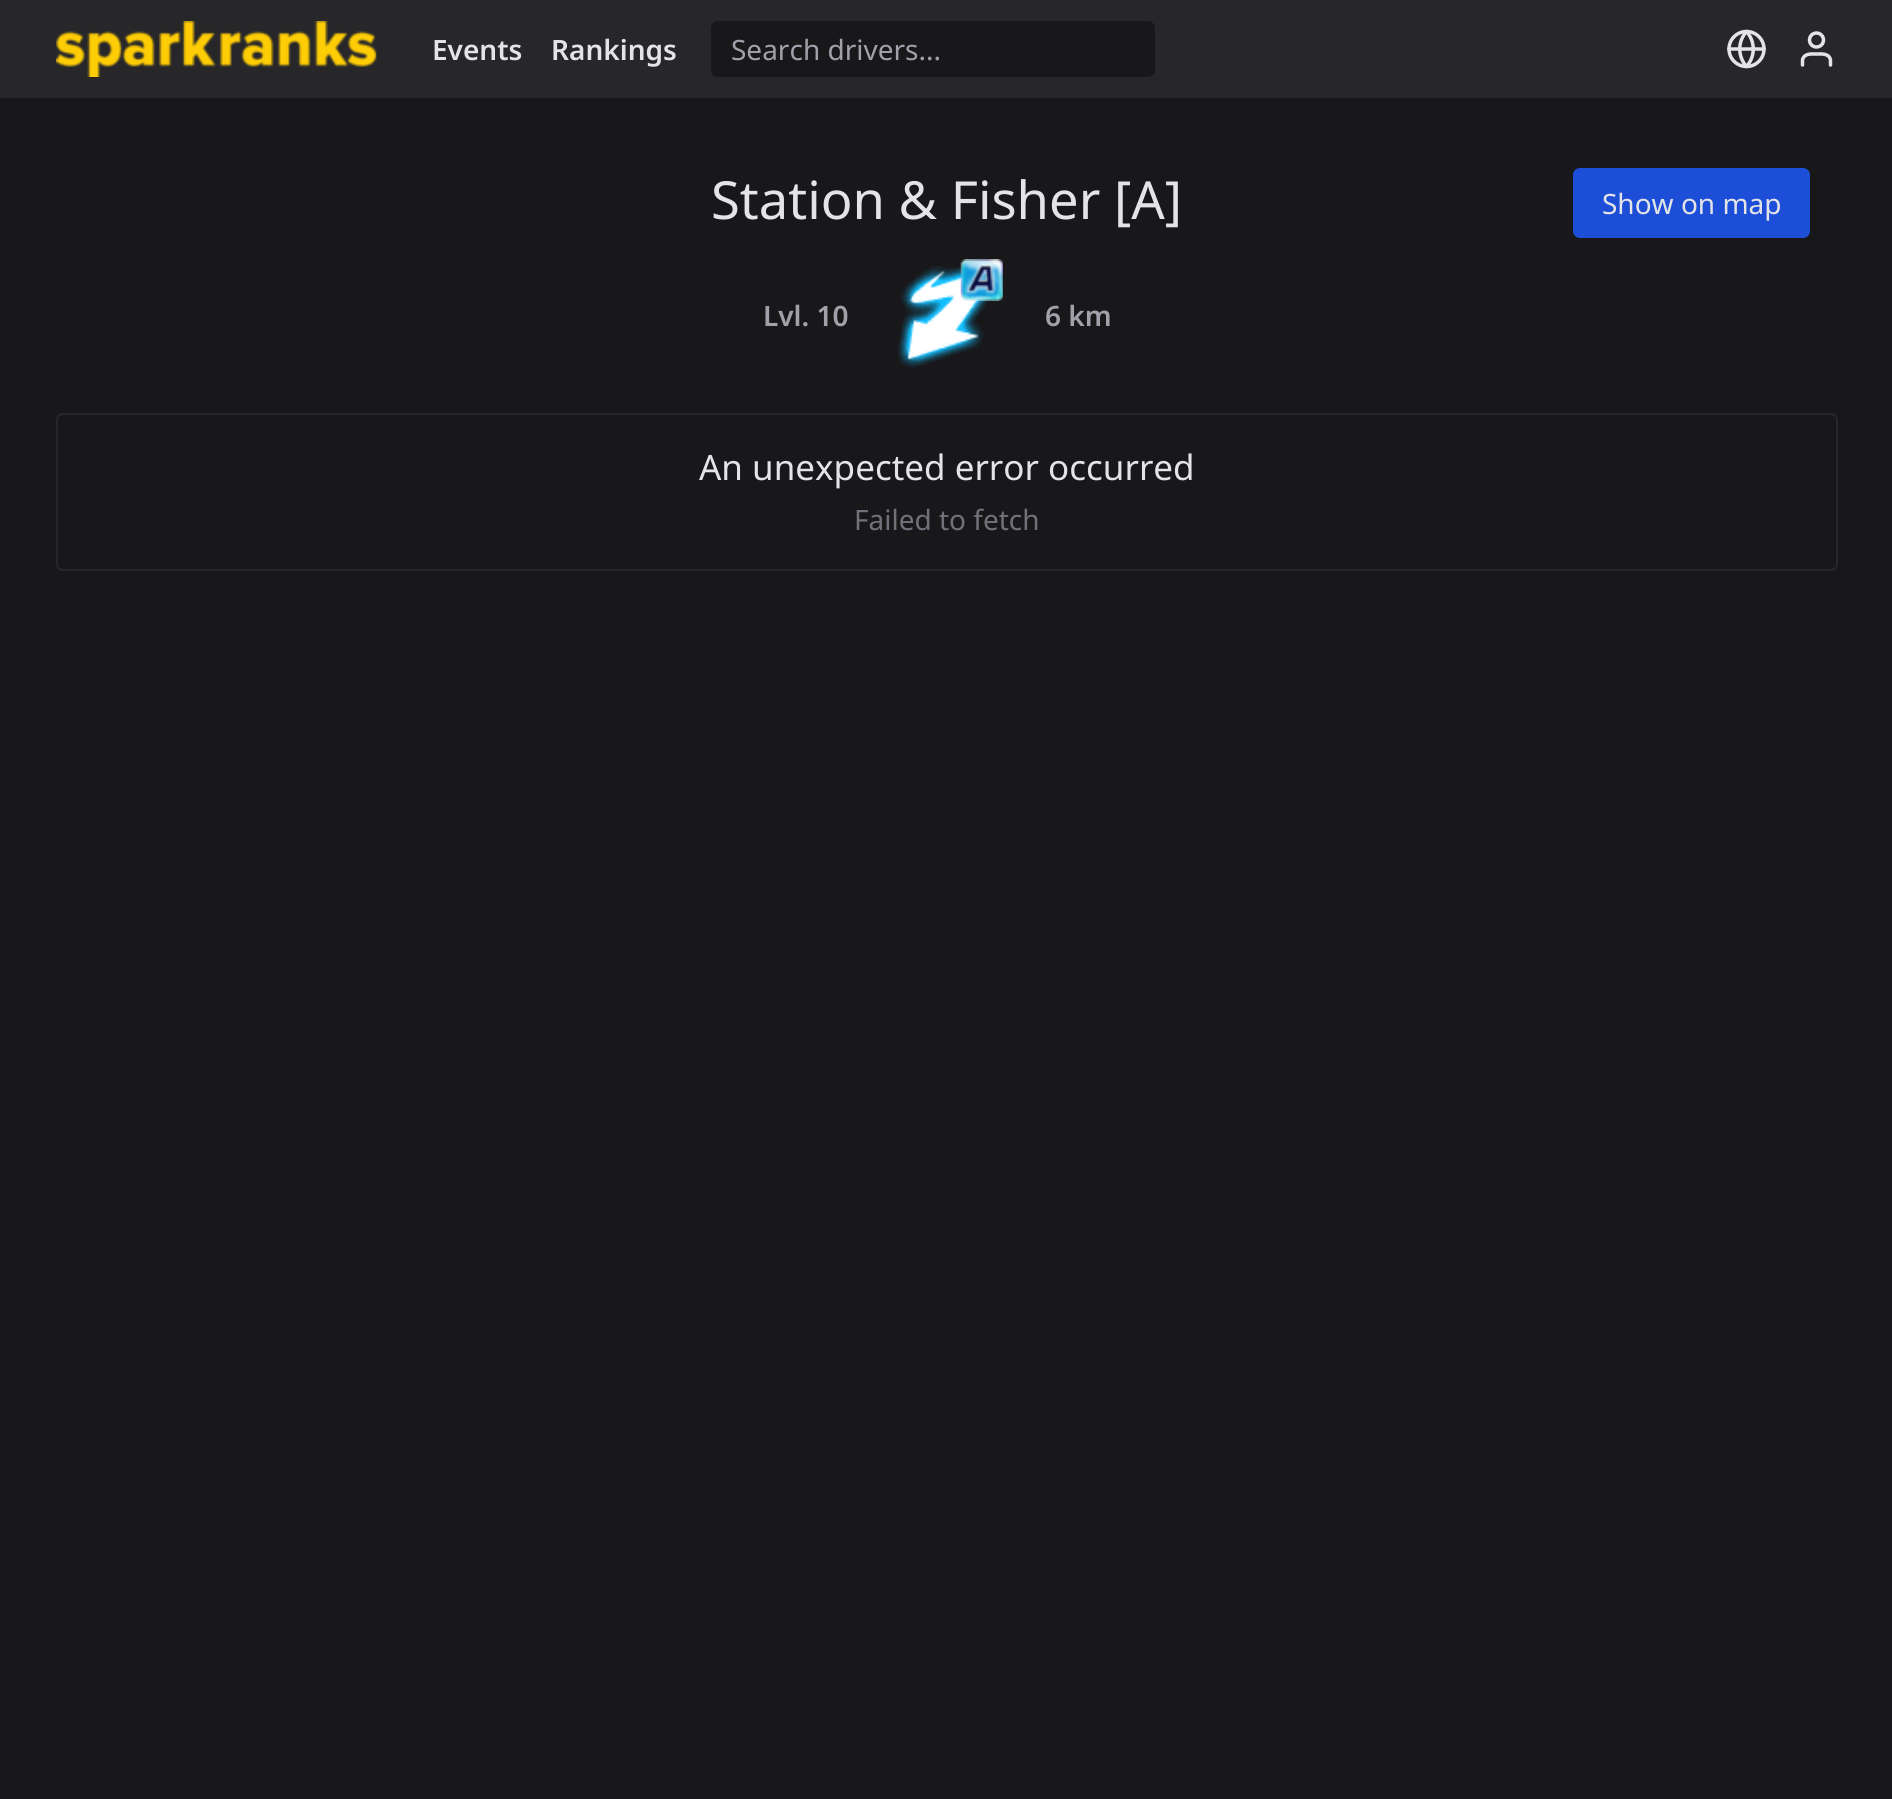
import math
import cairo

surface = cairo.ImageSurface(cairo.FORMAT_RGB24, 1892, 1799)
ctx = cairo.Context(surface)
options = cairo.FontOptions()
options.set_hint_metrics(cairo.HINT_METRICS_OFF)
options.set_hint_style(cairo.HINT_STYLE_NONE)
ctx.set_font_options(options)
ctx.set_miter_limit(4)


def round_rect(x, y, w, h, r):
    ctx.new_sub_path()
    for i, (u, v) in enumerate([(x + w - r, y + h - r), (x + r, y + h - r), (x + r, y + r), (x + w - r, y + r)]):
        ctx.arc(u, v, r, i * math.pi / 2, (i + 1) * math.pi / 2)
    ctx.close_path()


def picture(path, x, y, w, h):
    ctx.save()
    ctx.set_source_surface(cairo.ImageSurface.create_from_png(path), x, y)
    ctx.rectangle(x, y, w, h)
    ctx.fill()
    ctx.restore()


ctx.set_source_rgb(0.094, 0.094, 0.106)
ctx.paint()
ctx.set_source_rgb(0.153, 0.153, 0.165)
ctx.rectangle(0, 0, 1892, 98)
ctx.fill()
picture("img1.png", 56, 21, 321, 56)
ctx.select_font_face("Noto Sans SemiBold")
ctx.set_font_size(28)
ctx.set_source_rgb(0.894, 0.894, 0.906)
ctx.move_to(432, 60)
ctx.show_text("Events")
ctx.move_to(551, 60)
ctx.show_text("Rankings")
ctx.set_source_rgb(0.094, 0.094, 0.106)
round_rect(711, 21, 444, 56, 7)
ctx.fill()
ctx.select_font_face("Noto Sans")
ctx.set_source_rgb(0.631, 0.631, 0.667)
ctx.move_to(731, 60)
ctx.show_text("Search drivers...")
ctx.new_path()
ctx.arc(1746.5, 49, 17.5, 0, 2 * math.pi)
ctx.set_source_rgb(0.894, 0.894, 0.906)
ctx.set_line_width(3.5)
ctx.stroke()
ctx.new_path()
ctx.move_to(1729, 49)
ctx.line_to(1764, 49)
ctx.move_to(1746.5, 31.5)
ctx.curve_to(1755.5, 41.5, 1755.5, 56.5, 1746.5, 66.5)
ctx.curve_to(1737.5, 56.5, 1737.5, 41.5, 1746.5, 31.5)
ctx.close_path()
ctx.set_line_cap(cairo.LINE_CAP_ROUND)
ctx.set_line_join(cairo.LINE_JOIN_ROUND)
ctx.stroke()
ctx.new_path()
ctx.move_to(1830.5, 65)
ctx.line_to(1830.5, 60)
ctx.curve_to(1829, 53, 1821.5, 54, 1816.5, 54)
ctx.curve_to(1811.5, 54, 1804, 53, 1802.5, 60)
ctx.line_to(1802.5, 65)
ctx.stroke()
ctx.arc(1816.5, 40, 7, 0, 2 * math.pi)
ctx.set_line_cap(cairo.LINE_CAP_BUTT)
ctx.set_line_join(cairo.LINE_JOIN_MITER)
ctx.stroke()
ctx.set_font_size(52.5)
ctx.move_to(711, 219)
ctx.show_text("Station & Fisher [A]")
ctx.select_font_face("Noto Sans SemiBold")
ctx.set_font_size(28)
ctx.set_source_rgb(0.631, 0.631, 0.667)
ctx.move_to(763, 326)
ctx.show_text("Lvl. 10")
picture("img3.png", 898, 266, 93, 102)
picture("img2.png", 960, 259, 43, 42)
ctx.move_to(1045, 326)
ctx.show_text("6 km")
ctx.set_source_rgb(0.114, 0.306, 0.847)
round_rect(1573, 168, 237, 70, 7)
ctx.fill()
ctx.select_font_face("Noto Sans")
ctx.set_source_rgb(0.894, 0.894, 0.906)
ctx.move_to(1602, 214)
ctx.show_text("Show on map")
round_rect(57, 414, 1780, 156, 6)
ctx.set_source_rgb(0.153, 0.153, 0.165)
ctx.set_line_width(2)
ctx.stroke()
ctx.set_font_size(35)
ctx.set_source_rgb(0.894, 0.894, 0.906)
ctx.move_to(699, 480)
ctx.show_text("An unexpected error occurred")
ctx.set_font_size(28)
ctx.set_source_rgb(0.443, 0.443, 0.478)
ctx.move_to(854, 530)
ctx.show_text("Failed to fetch")
surface.write_to_png("page.png")
